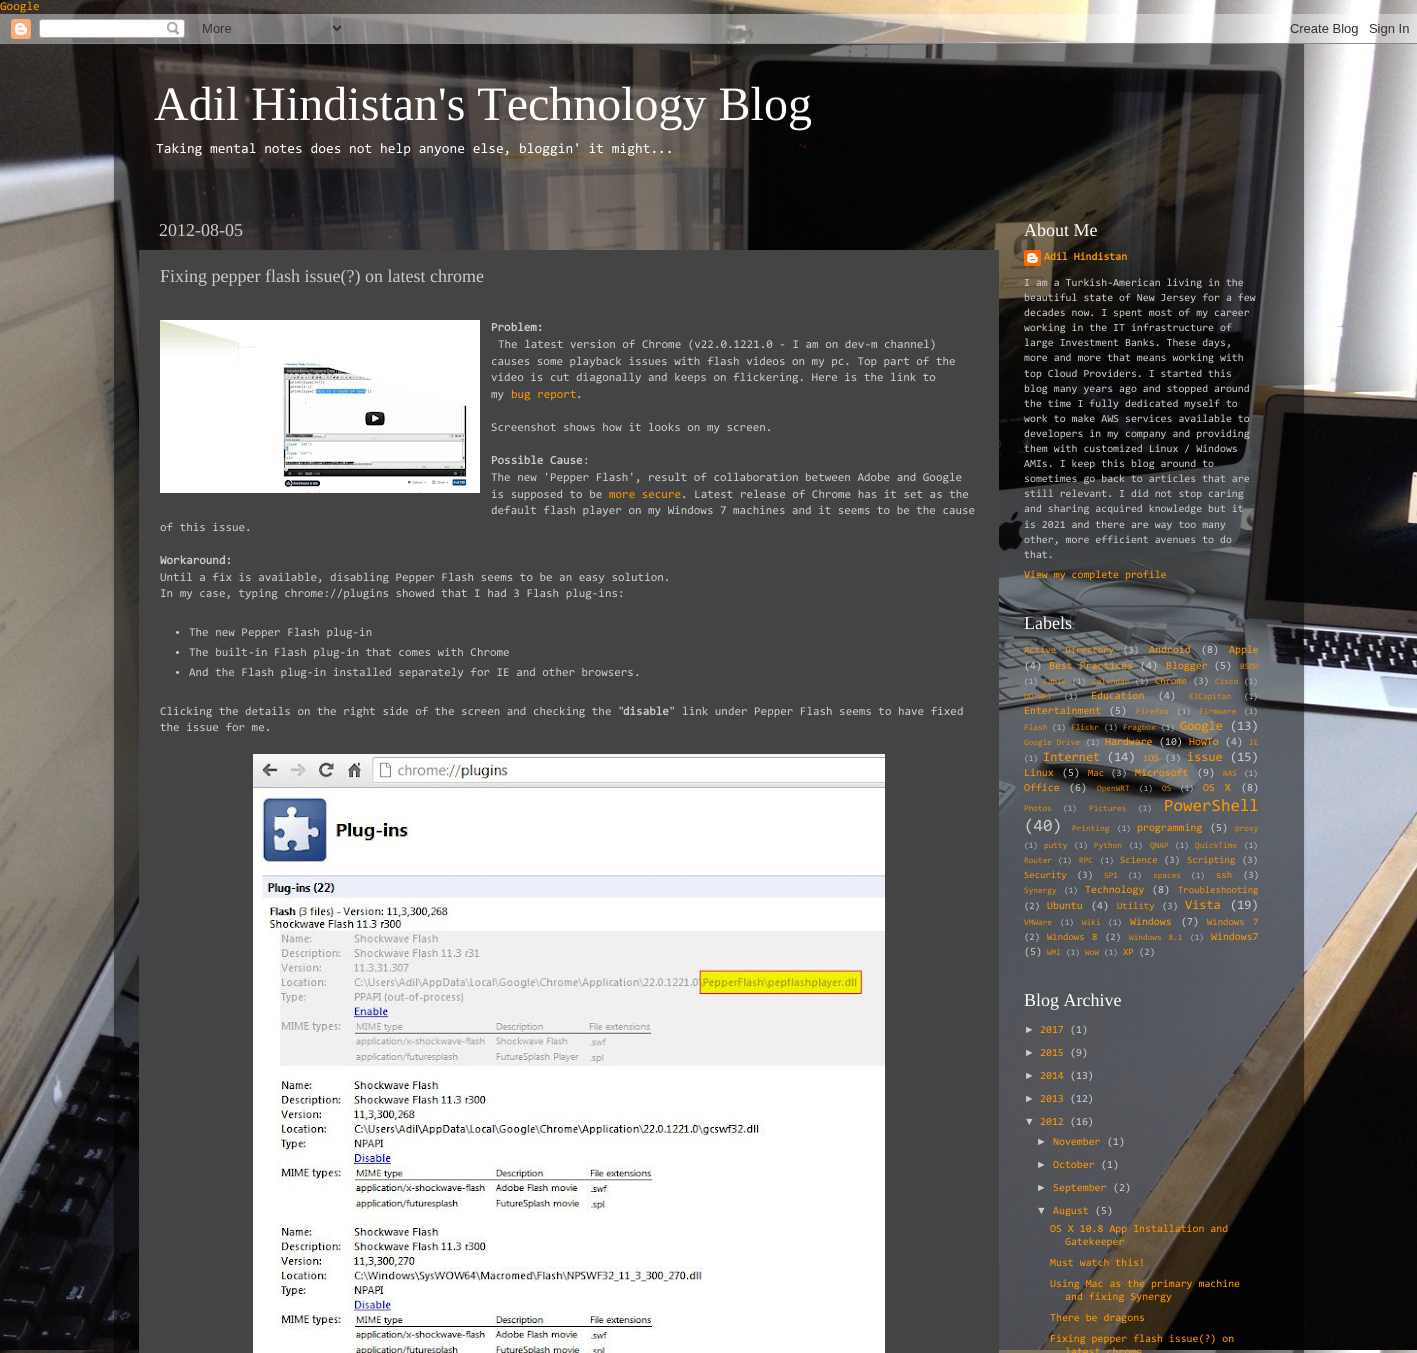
import math
import cairo

surface = cairo.ImageSurface(cairo.FORMAT_RGB24, 1417, 1353)
ctx = cairo.Context(surface)
options = cairo.FontOptions()
options.set_hint_metrics(cairo.HINT_METRICS_OFF)
options.set_hint_style(cairo.HINT_STYLE_NONE)
ctx.set_font_options(options)
ctx.set_miter_limit(4)


def spaced_text(x, y, s, letter, word):
    ctx.move_to(x, y)
    for ch in s:
        ctx.show_text(ch)
        ctx.rel_move_to(letter + word * (ch == ' '), 0)


def round_rect(x, y, w, h, r):
    ctx.new_sub_path()
    for i, (u, v) in enumerate([(x + w - r, y + h - r), (x + r, y + h - r), (x + r, y + r), (x + w - r, y + r)]):
        ctx.arc(u, v, r, i * math.pi / 2, (i + 1) * math.pi / 2)
    ctx.close_path()


def shadow(x, y, w, h, r, blur, alpha):
    ctx.push_group_with_content(cairo.CONTENT_ALPHA)
    ctx.set_operator(cairo.OPERATOR_SOURCE)
    for i in range(15, -16, -2):
        e = blur * i / 6
        if min(w, h) + 2 * e > 0:
            ctx.set_source_rgba(0, 0, 0, alpha * math.erfc((i - 1) / 8.5) / 2)
            round_rect(x - e, y - e, w + 2 * e, h + 2 * e, max(0, min(r + e + blur * .6, min(w, h) / 2 + e)))
            ctx.fill()
    ctx.mask(ctx.pop_group())


def picture(path, x, y, w, h):
    ctx.save()
    ctx.set_source_surface(cairo.ImageSurface.create_from_png(path), x, y)
    ctx.rectangle(x, y, w, h)
    ctx.fill()
    ctx.restore()


ctx.set_source_rgb(1, 1, 1)
ctx.paint()
picture("img1.png", 0, 0, 1417, 1353)
ctx.select_font_face("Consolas")
ctx.set_font_size(12)
ctx.set_source_rgb(1, 0.6, 0)
ctx.move_to(0, 10)
ctx.show_text("Google")
ctx.save()
ctx.set_fill_rule(cairo.FILL_RULE_EVEN_ODD)
ctx.new_path()
ctx.move_to(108, 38)
ctx.line_to(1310, 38)
ctx.line_to(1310, 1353)
ctx.line_to(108, 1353)
ctx.close_path()
ctx.move_to(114, 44)
ctx.line_to(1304, 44)
ctx.line_to(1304, 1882)
ctx.line_to(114, 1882)
ctx.close_path()
ctx.clip()
ctx.set_source_rgb(0, 0, 0)
shadow(114, 44, 1190, 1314, 0, 1.5, 0.15)
ctx.restore()
picture("img2.png", 0, 14, 1417, 30)
ctx.set_source_rgba(0, 0, 0, 0.5)
ctx.rectangle(114, 44, 1190, 1309)
ctx.fill()
ctx.select_font_face("Liberation Serif")
ctx.set_font_size(48)
ctx.set_source_rgb(1, 1, 1)
ctx.move_to(154, 120)
ctx.show_text("Adil Hindistan's Technology Blog")
ctx.select_font_face("Consolas")
ctx.set_font_size(14.05)
ctx.move_to(156, 153)
ctx.show_text("Taking mental notes does not help anyone else, bloggin' it might...")
ctx.select_font_face("Liberation Serif")
ctx.set_font_size(18)
ctx.set_source_rgb(0.8, 0.8, 0.8)
ctx.move_to(159, 236)
ctx.show_text("2012-08-05")
ctx.set_source_rgb(0.267, 0.267, 0.267)
ctx.rectangle(139, 250, 860, 1103)
ctx.fill()
ctx.set_source_rgb(0.8, 0.8, 0.8)
ctx.move_to(160, 282)
ctx.show_text("Fixing pepper flash issue(?) on latest chrome")
picture("img3.png", 160, 320, 320, 173)
ctx.select_font_face("Consolas", cairo.FONT_SLANT_NORMAL, cairo.FONT_WEIGHT_BOLD)
ctx.set_font_size(11.9)
ctx.move_to(491, 331)
ctx.show_text("Problem:")
ctx.select_font_face("Consolas")
ctx.move_to(498, 348)
ctx.show_text("The latest version of Chrome (v22.0.1221.0 - I am on dev-m channel)")
ctx.move_to(491, 365)
ctx.show_text("causes some playback issues with flash videos on my pc. Top part of the")
ctx.move_to(491, 381)
ctx.show_text("video is cut diagonally and keeps on flickering. Here is the link to")
ctx.move_to(491, 398)
ctx.show_text("my")
ctx.set_source_rgb(1, 0.6, 0)
ctx.move_to(511, 398)
ctx.show_text("bug report")
ctx.set_source_rgb(0.8, 0.8, 0.8)
ctx.move_to(576, 398)
ctx.show_text(".")
ctx.move_to(491, 431)
ctx.show_text("Screenshot shows how it looks on my screen.")
ctx.select_font_face("Consolas", cairo.FONT_SLANT_NORMAL, cairo.FONT_WEIGHT_BOLD)
ctx.move_to(491, 464)
ctx.show_text("Possible Cause")
ctx.select_font_face("Consolas")
ctx.move_to(583, 464)
ctx.show_text(":")
ctx.move_to(491, 481)
ctx.show_text("The new 'Pepper Flash', result of collaboration between Adobe and Google")
ctx.move_to(491, 498)
ctx.show_text("is supposed to be")
ctx.set_source_rgb(1, 0.6, 0)
ctx.move_to(609, 498)
ctx.show_text("more secure")
ctx.set_source_rgb(0.8, 0.8, 0.8)
ctx.move_to(681, 498)
ctx.show_text(". Latest release of Chrome has it set as the")
ctx.move_to(491, 514)
ctx.show_text("default flash player on my Windows 7 machines and it seems to be the cause")
ctx.move_to(160, 531)
ctx.show_text("of this issue.")
ctx.select_font_face("Consolas", cairo.FONT_SLANT_NORMAL, cairo.FONT_WEIGHT_BOLD)
ctx.move_to(160, 564)
ctx.show_text("Workaround:")
ctx.select_font_face("Consolas")
ctx.move_to(160, 581)
ctx.show_text("Until a fix is available, disabling Pepper Flash seems to be an easy solution.")
ctx.move_to(160, 597)
ctx.show_text("In my case, typing chrome://plugins showed that I had 3 Flash plug-ins:")
ctx.new_path()
ctx.arc(177.5, 632.5, 1.5, 0, 2 * math.pi)
ctx.fill()
ctx.move_to(189, 636)
ctx.show_text("The new Pepper Flash plug-in")
ctx.new_path()
ctx.arc(177.5, 652.5, 1.5, 0, 2 * math.pi)
ctx.fill()
ctx.move_to(189, 656)
ctx.show_text("The built-in Flash plug-in that comes with Chrome")
ctx.new_path()
ctx.arc(177.5, 672.5, 1.5, 0, 2 * math.pi)
ctx.fill()
ctx.move_to(189, 676)
ctx.show_text("And the Flash plug-in installed separately for IE and other browsers.")
ctx.move_to(160, 715)
ctx.show_text("Clicking the details on the right side of the screen and checking the \"")
ctx.select_font_face("Consolas", cairo.FONT_SLANT_NORMAL, cairo.FONT_WEIGHT_BOLD)
ctx.move_to(623, 715)
ctx.show_text("disable")
ctx.select_font_face("Consolas")
ctx.move_to(669, 715)
ctx.show_text("\" link under Pepper Flash seems to have fixed")
ctx.move_to(160, 731)
ctx.show_text("the issue for me.")
picture("img4.png", 253, 754, 632, 599)
ctx.select_font_face("Liberation Serif")
ctx.set_font_size(18)
ctx.set_source_rgb(1, 1, 1)
ctx.move_to(1024, 236)
ctx.show_text("About Me")
picture("img5.png", 1024, 250, 17, 16)
ctx.select_font_face("Consolas", cairo.FONT_SLANT_NORMAL, cairo.FONT_WEIGHT_BOLD)
ctx.set_font_size(10.8)
ctx.set_source_rgb(1, 0.6, 0)
ctx.move_to(1044, 260)
ctx.show_text("Adil Hindistan")
ctx.select_font_face("Consolas")
ctx.set_source_rgb(0.8, 0.8, 0.8)
ctx.move_to(1024, 286)
ctx.show_text("I am a Turkish-American living in the")
ctx.move_to(1024, 301)
ctx.show_text("beautiful state of New Jersey for a few")
ctx.move_to(1024, 316)
ctx.show_text("decades now. I spent most of my career")
ctx.move_to(1024, 331)
ctx.show_text("working in the IT infrastructure of")
ctx.move_to(1024, 346)
ctx.show_text("large Investment Banks. These days,")
ctx.move_to(1024, 361)
ctx.show_text("more and more that means working with")
ctx.move_to(1024, 377)
ctx.show_text("top Cloud Providers. I started this")
ctx.move_to(1024, 392)
ctx.show_text("blog many years ago and stopped around")
ctx.move_to(1024, 407)
ctx.show_text("the time I fully dedicated myself to")
ctx.move_to(1024, 422)
ctx.show_text("work to make AWS services available to")
ctx.move_to(1024, 437)
ctx.show_text("developers in my company and providing")
ctx.move_to(1024, 452)
ctx.show_text("them with customized Linux / Windows")
ctx.move_to(1024, 467)
ctx.show_text("AMIs. I keep this blog around to")
ctx.move_to(1024, 482)
ctx.show_text("sometimes go back to articles that are")
ctx.move_to(1024, 497)
ctx.show_text("still relevant. I did not stop caring")
ctx.move_to(1024, 512)
ctx.show_text("and sharing acquired knowledge but it")
ctx.move_to(1024, 528)
ctx.show_text("is 2021 and there are way too many")
ctx.move_to(1024, 543)
ctx.show_text("other, more efficient avenues to do")
ctx.move_to(1024, 558)
ctx.show_text("that.")
ctx.set_source_rgb(1, 0.6, 0)
ctx.move_to(1024, 578)
ctx.show_text("View my complete profile")
ctx.select_font_face("Liberation Serif")
ctx.set_font_size(18)
ctx.set_source_rgb(1, 1, 1)
ctx.move_to(1024, 629)
ctx.show_text("Labels")
ctx.select_font_face("Consolas")
ctx.set_font_size(9.75)
ctx.set_source_rgb(0.937, 0.58, 0.043)
spaced_text(1024, 653, "Active Directory", 0, 4)
ctx.set_source_rgb(0.765, 0.765, 0.765)
ctx.move_to(1123, 653)
ctx.show_text("(3)")
ctx.set_font_size(10.8)
ctx.set_source_rgb(1, 0.6, 0)
ctx.move_to(1149, 653)
ctx.show_text("Android")
ctx.set_source_rgb(0.8, 0.8, 0.8)
ctx.move_to(1201, 653)
ctx.show_text("(8)")
ctx.set_source_rgb(1, 0.6, 0)
ctx.move_to(1229, 653)
ctx.show_text("Apple")
ctx.set_source_rgb(0.8, 0.8, 0.8)
ctx.move_to(1024, 669)
ctx.show_text("(4)")
ctx.set_source_rgb(1, 0.6, 0)
spaced_text(1049, 669, "Best Practices", 0, 1)
ctx.set_source_rgb(0.8, 0.8, 0.8)
ctx.move_to(1140, 669)
ctx.show_text("(4)")
ctx.set_source_rgb(1, 0.6, 0)
ctx.move_to(1166, 669)
ctx.show_text("Blogger")
ctx.set_source_rgb(0.8, 0.8, 0.8)
ctx.move_to(1214, 669)
ctx.show_text("(5)")
ctx.set_font_size(8.5)
ctx.set_source_rgb(0.867, 0.549, 0.075)
ctx.move_to(1240, 669)
ctx.show_text("BSOD")
ctx.set_source_rgb(0.729, 0.733, 0.737)
ctx.move_to(1024, 684)
ctx.show_text("(1)")
ctx.set_source_rgb(0.867, 0.549, 0.075)
ctx.move_to(1043, 684)
ctx.show_text("Cable")
ctx.set_source_rgb(0.729, 0.733, 0.737)
ctx.move_to(1072, 684)
ctx.show_text("(1)")
ctx.set_source_rgb(0.867, 0.549, 0.075)
ctx.move_to(1092, 684)
ctx.show_text("Calendar")
ctx.set_source_rgb(0.706, 0.71, 0.714)
ctx.move_to(1135, 684)
ctx.show_text("(1)")
ctx.set_font_size(9.75)
ctx.set_source_rgb(0.937, 0.58, 0.043)
ctx.move_to(1155, 684)
ctx.show_text("Chrome")
ctx.set_source_rgb(0.765, 0.765, 0.765)
ctx.move_to(1193, 684)
ctx.show_text("(3)")
ctx.set_font_size(8.5)
ctx.set_source_rgb(0.867, 0.549, 0.075)
ctx.move_to(1215, 684)
ctx.show_text("Cisco")
ctx.set_source_rgb(0.706, 0.71, 0.714)
ctx.move_to(1244, 684)
ctx.show_text("(1)")
ctx.set_source_rgb(0.867, 0.549, 0.075)
ctx.move_to(1024, 699)
ctx.show_text("DD-WRT")
ctx.set_source_rgb(0.706, 0.71, 0.714)
ctx.move_to(1064, 699)
ctx.show_text("(1)")
ctx.set_font_size(10.8)
ctx.set_source_rgb(1, 0.6, 0)
ctx.move_to(1091, 699)
ctx.show_text("Education")
ctx.set_source_rgb(0.8, 0.8, 0.8)
ctx.move_to(1158, 699)
ctx.show_text("(4)")
ctx.set_font_size(8.5)
ctx.set_source_rgb(0.867, 0.549, 0.075)
ctx.move_to(1189, 699)
ctx.show_text("ElCapitan")
ctx.set_source_rgb(0.706, 0.71, 0.714)
ctx.move_to(1244, 699)
ctx.show_text("(1)")
ctx.set_font_size(10.8)
ctx.set_source_rgb(1, 0.6, 0)
ctx.move_to(1024, 714)
ctx.show_text("Entertainment")
ctx.set_source_rgb(0.8, 0.8, 0.8)
ctx.move_to(1109, 714)
ctx.show_text("(5)")
ctx.set_font_size(8.5)
ctx.set_source_rgb(0.89, 0.573, 0.098)
ctx.move_to(1136, 714)
ctx.show_text("Firefox")
ctx.set_source_rgb(0.729, 0.733, 0.737)
ctx.move_to(1177, 714)
ctx.show_text("(1)")
ctx.set_source_rgb(0.867, 0.549, 0.075)
ctx.move_to(1199, 714)
ctx.show_text("Firmware")
ctx.set_source_rgb(0.729, 0.733, 0.737)
ctx.move_to(1244, 714)
ctx.show_text("(1)")
ctx.set_source_rgb(0.867, 0.549, 0.075)
ctx.move_to(1024, 730)
ctx.show_text("Flash")
ctx.set_source_rgb(0.729, 0.733, 0.737)
ctx.move_to(1052, 730)
ctx.show_text("(1)")
ctx.set_source_rgb(0.824, 0.502, 0.024)
ctx.move_to(1071, 730)
ctx.show_text("Flickr")
ctx.set_source_rgb(0.655, 0.651, 0.655)
ctx.move_to(1104, 730)
ctx.show_text("(1)")
ctx.set_source_rgb(0.824, 0.502, 0.024)
ctx.move_to(1123, 730)
ctx.show_text("Fragbox")
ctx.set_source_rgb(0.706, 0.71, 0.714)
ctx.move_to(1161, 730)
ctx.show_text("(1)")
ctx.set_font_size(13)
ctx.set_source_rgb(1, 0.6, 0)
ctx.move_to(1180, 730)
ctx.show_text("Google")
ctx.set_source_rgb(0.8, 0.8, 0.8)
ctx.move_to(1230, 730)
ctx.show_text("(13)")
ctx.set_font_size(8.5)
ctx.set_source_rgb(0.867, 0.549, 0.075)
ctx.move_to(1024, 745)
ctx.show_text("Google Drive")
ctx.set_source_rgb(0.729, 0.733, 0.737)
ctx.move_to(1086, 745)
ctx.show_text("(1)")
ctx.set_font_size(10.8)
ctx.set_source_rgb(1, 0.6, 0)
ctx.move_to(1105, 745)
ctx.show_text("Hardware")
ctx.set_source_rgb(0.8, 0.8, 0.8)
ctx.move_to(1159, 745)
ctx.show_text("(10)")
ctx.set_source_rgb(1, 0.6, 0)
ctx.move_to(1189, 745)
ctx.show_text("HowTo")
ctx.set_source_rgb(0.8, 0.8, 0.8)
ctx.move_to(1225, 745)
ctx.show_text("(4)")
ctx.set_font_size(8.5)
ctx.set_source_rgb(0.867, 0.549, 0.075)
ctx.move_to(1249, 745)
ctx.show_text("IE")
ctx.set_source_rgb(0.729, 0.733, 0.737)
ctx.move_to(1024, 761)
ctx.show_text("(1)")
ctx.set_font_size(13)
ctx.set_source_rgb(1, 0.6, 0)
ctx.move_to(1043, 761)
ctx.show_text("Internet")
ctx.set_source_rgb(0.8, 0.8, 0.8)
ctx.move_to(1107, 761)
ctx.show_text("(14)")
ctx.set_font_size(9.75)
ctx.set_source_rgb(0.937, 0.58, 0.043)
ctx.move_to(1143, 761)
ctx.show_text("iOS")
ctx.set_source_rgb(0.765, 0.765, 0.765)
ctx.move_to(1165, 761)
ctx.show_text("(3)")
ctx.set_font_size(13)
ctx.set_source_rgb(1, 0.6, 0)
ctx.move_to(1187, 761)
ctx.show_text("issue")
ctx.set_source_rgb(0.8, 0.8, 0.8)
ctx.move_to(1230, 761)
ctx.show_text("(15)")
ctx.set_font_size(10.8)
ctx.set_source_rgb(1, 0.6, 0)
ctx.move_to(1024, 776)
ctx.show_text("Linux")
ctx.set_source_rgb(0.8, 0.8, 0.8)
ctx.move_to(1062, 776)
ctx.show_text("(5)")
ctx.set_font_size(9.75)
ctx.set_source_rgb(0.91, 0.549, 0.008)
ctx.move_to(1088, 776)
ctx.show_text("Mac")
ctx.set_source_rgb(0.729, 0.733, 0.737)
ctx.move_to(1111, 776)
ctx.show_text("(3)")
ctx.set_font_size(10.8)
ctx.set_source_rgb(1, 0.6, 0)
ctx.move_to(1135, 776)
ctx.show_text("Microsoft")
ctx.set_source_rgb(0.8, 0.8, 0.8)
ctx.move_to(1197, 776)
ctx.show_text("(9)")
ctx.set_font_size(8.5)
ctx.set_source_rgb(0.867, 0.549, 0.075)
ctx.move_to(1223, 776)
ctx.show_text("NAS")
ctx.set_source_rgb(0.729, 0.733, 0.737)
ctx.move_to(1244, 776)
ctx.show_text("(1)")
ctx.set_font_size(10.8)
ctx.set_source_rgb(1, 0.6, 0)
ctx.move_to(1024, 791)
ctx.show_text("Office")
ctx.set_source_rgb(0.8, 0.8, 0.8)
ctx.move_to(1069, 791)
ctx.show_text("(6)")
ctx.set_font_size(8.5)
ctx.set_source_rgb(0.824, 0.502, 0.024)
ctx.move_to(1097, 791)
ctx.show_text("OpenWRT")
ctx.set_source_rgb(0.655, 0.651, 0.655)
ctx.move_to(1139, 791)
ctx.show_text("(1)")
ctx.set_source_rgb(0.824, 0.502, 0.024)
ctx.move_to(1162, 791)
ctx.show_text("OS")
ctx.set_source_rgb(0.706, 0.71, 0.714)
ctx.move_to(1180, 791)
ctx.show_text("(1)")
ctx.set_font_size(10.8)
ctx.set_source_rgb(1, 0.6, 0)
spaced_text(1203, 791, "OS X", 0, 4)
ctx.set_source_rgb(0.8, 0.8, 0.8)
ctx.move_to(1241, 791)
ctx.show_text("(8)")
ctx.set_font_size(8.5)
ctx.set_source_rgb(0.867, 0.549, 0.075)
ctx.move_to(1024, 811)
ctx.show_text("Photos")
ctx.set_source_rgb(0.706, 0.71, 0.714)
ctx.move_to(1063, 811)
ctx.show_text("(1)")
ctx.set_source_rgb(0.867, 0.549, 0.075)
ctx.move_to(1089, 811)
ctx.show_text("Pictures")
ctx.set_source_rgb(0.706, 0.71, 0.714)
ctx.move_to(1138, 811)
ctx.show_text("(1)")
ctx.set_font_size(17.25)
ctx.set_source_rgb(1, 0.6, 0)
ctx.move_to(1164, 811)
ctx.show_text("PowerShell")
ctx.set_source_rgb(0.8, 0.8, 0.8)
ctx.move_to(1024, 831)
ctx.show_text("(40)")
ctx.set_font_size(8.5)
ctx.set_source_rgb(0.867, 0.549, 0.075)
ctx.move_to(1072, 831)
ctx.show_text("Printing")
ctx.set_source_rgb(0.706, 0.71, 0.714)
ctx.move_to(1117, 831)
ctx.show_text("(1)")
ctx.set_font_size(10.8)
ctx.set_source_rgb(1, 0.6, 0)
ctx.move_to(1137, 831)
ctx.show_text("programming")
ctx.set_source_rgb(0.8, 0.8, 0.8)
ctx.move_to(1210, 831)
ctx.show_text("(5)")
ctx.set_font_size(8.5)
ctx.set_source_rgb(0.867, 0.549, 0.075)
ctx.move_to(1235, 831)
ctx.show_text("proxy")
ctx.set_source_rgb(0.706, 0.71, 0.714)
ctx.move_to(1024, 848)
ctx.show_text("(1)")
ctx.set_source_rgb(0.867, 0.549, 0.075)
ctx.move_to(1044, 848)
ctx.show_text("putty")
ctx.set_source_rgb(0.706, 0.71, 0.714)
ctx.move_to(1074, 848)
ctx.show_text("(1)")
ctx.set_source_rgb(0.867, 0.549, 0.075)
ctx.move_to(1094, 848)
ctx.show_text("Python")
ctx.set_source_rgb(0.706, 0.71, 0.714)
ctx.move_to(1129, 848)
ctx.show_text("(1)")
ctx.set_source_rgb(0.867, 0.549, 0.075)
ctx.move_to(1150, 848)
ctx.show_text("QNAP")
ctx.set_source_rgb(0.706, 0.71, 0.714)
ctx.move_to(1175, 848)
ctx.show_text("(1)")
ctx.set_source_rgb(0.867, 0.549, 0.075)
ctx.move_to(1195, 848)
ctx.show_text("QuickTime")
ctx.set_source_rgb(0.729, 0.733, 0.737)
ctx.move_to(1244, 848)
ctx.show_text("(1)")
ctx.set_source_rgb(0.867, 0.549, 0.075)
ctx.move_to(1024, 863)
ctx.show_text("Router")
ctx.set_source_rgb(0.706, 0.71, 0.714)
ctx.move_to(1058, 863)
ctx.show_text("(1)")
ctx.set_source_rgb(0.867, 0.549, 0.075)
ctx.move_to(1079, 863)
ctx.show_text("RPC")
ctx.set_source_rgb(0.706, 0.71, 0.714)
ctx.move_to(1100, 863)
ctx.show_text("(1)")
ctx.set_font_size(9.75)
ctx.set_source_rgb(0.937, 0.58, 0.043)
ctx.move_to(1120, 863)
ctx.show_text("Science")
ctx.set_source_rgb(0.765, 0.765, 0.765)
ctx.move_to(1164, 863)
ctx.show_text("(3)")
ctx.set_source_rgb(0.937, 0.58, 0.043)
ctx.move_to(1187, 863)
ctx.show_text("Scripting")
ctx.set_source_rgb(0.765, 0.765, 0.765)
ctx.move_to(1242, 863)
ctx.show_text("(3)")
ctx.set_source_rgb(0.937, 0.58, 0.043)
ctx.move_to(1024, 878)
ctx.show_text("Security")
ctx.set_source_rgb(0.765, 0.765, 0.765)
ctx.move_to(1077, 878)
ctx.show_text("(3)")
ctx.set_font_size(8.5)
ctx.set_source_rgb(0.867, 0.549, 0.075)
ctx.move_to(1104, 878)
ctx.show_text("SP1")
ctx.set_source_rgb(0.706, 0.71, 0.714)
ctx.move_to(1128, 878)
ctx.show_text("(1)")
ctx.set_source_rgb(0.867, 0.549, 0.075)
ctx.move_to(1153, 878)
ctx.show_text("spaces")
ctx.set_source_rgb(0.706, 0.71, 0.714)
ctx.move_to(1191, 878)
ctx.show_text("(1)")
ctx.set_font_size(9.75)
ctx.set_source_rgb(0.937, 0.58, 0.043)
ctx.move_to(1216, 878)
ctx.show_text("ssh")
ctx.set_source_rgb(0.765, 0.765, 0.765)
ctx.move_to(1243, 878)
ctx.show_text("(3)")
ctx.set_font_size(8.5)
ctx.set_source_rgb(0.867, 0.549, 0.075)
ctx.move_to(1024, 893)
ctx.show_text("Synergy")
ctx.set_source_rgb(0.706, 0.71, 0.714)
ctx.move_to(1064, 893)
ctx.show_text("(1)")
ctx.set_font_size(10.8)
ctx.set_source_rgb(1, 0.6, 0)
ctx.move_to(1085, 893)
ctx.show_text("Technology")
ctx.set_source_rgb(0.8, 0.8, 0.8)
ctx.move_to(1152, 893)
ctx.show_text("(8)")
ctx.set_font_size(9.75)
ctx.set_source_rgb(0.937, 0.58, 0.043)
ctx.move_to(1178, 893)
ctx.show_text("Troubleshooting")
ctx.set_source_rgb(0.765, 0.765, 0.765)
ctx.move_to(1024, 909)
ctx.show_text("(2)")
ctx.set_font_size(10.8)
ctx.set_source_rgb(1, 0.6, 0)
ctx.move_to(1047, 909)
ctx.show_text("Ubuntu")
ctx.set_source_rgb(0.8, 0.8, 0.8)
ctx.move_to(1091, 909)
ctx.show_text("(4)")
ctx.set_font_size(9.75)
ctx.set_source_rgb(0.937, 0.58, 0.043)
ctx.move_to(1117, 909)
ctx.show_text("Utility")
ctx.set_source_rgb(0.765, 0.765, 0.765)
ctx.move_to(1162, 909)
ctx.show_text("(3)")
ctx.set_font_size(13)
ctx.set_source_rgb(1, 0.6, 0)
ctx.move_to(1185, 909)
ctx.show_text("Vista")
ctx.set_source_rgb(0.8, 0.8, 0.8)
ctx.move_to(1230, 909)
ctx.show_text("(19)")
ctx.set_font_size(8.5)
ctx.set_source_rgb(0.867, 0.549, 0.075)
ctx.move_to(1024, 925)
ctx.show_text("VMWare")
ctx.set_source_rgb(0.706, 0.71, 0.714)
ctx.move_to(1060, 925)
ctx.show_text("(1)")
ctx.set_source_rgb(0.867, 0.549, 0.075)
ctx.move_to(1082, 925)
ctx.show_text("Wiki")
ctx.set_source_rgb(0.706, 0.71, 0.714)
ctx.move_to(1108, 925)
ctx.show_text("(1)")
ctx.set_font_size(10.8)
ctx.set_source_rgb(1, 0.6, 0)
ctx.move_to(1130, 925)
ctx.show_text("Windows")
ctx.set_source_rgb(0.8, 0.8, 0.8)
ctx.move_to(1181, 925)
ctx.show_text("(7)")
ctx.set_font_size(9.75)
ctx.set_source_rgb(0.937, 0.58, 0.043)
spaced_text(1207, 925, "Windows 7", 0, 3)
ctx.set_source_rgb(0.765, 0.765, 0.765)
ctx.move_to(1024, 940)
ctx.show_text("(2)")
ctx.set_source_rgb(0.937, 0.58, 0.043)
spaced_text(1047, 940, "Windows 8", 0, 2)
ctx.set_source_rgb(0.765, 0.765, 0.765)
ctx.move_to(1105, 940)
ctx.show_text("(2)")
ctx.set_font_size(8.5)
ctx.set_source_rgb(0.867, 0.549, 0.075)
spaced_text(1129, 940, "Windows 8.1", 0, 2)
ctx.set_source_rgb(0.706, 0.71, 0.714)
ctx.move_to(1190, 940)
ctx.show_text("(1)")
ctx.set_font_size(10.8)
ctx.set_source_rgb(1, 0.6, 0)
ctx.move_to(1211, 940)
ctx.show_text("Windows7")
ctx.set_source_rgb(0.8, 0.8, 0.8)
ctx.move_to(1024, 955)
ctx.show_text("(5)")
ctx.set_font_size(8.5)
ctx.set_source_rgb(0.867, 0.549, 0.075)
ctx.move_to(1047, 955)
ctx.show_text("WMI")
ctx.set_source_rgb(0.706, 0.71, 0.714)
ctx.move_to(1066, 955)
ctx.show_text("(1)")
ctx.set_source_rgb(0.867, 0.549, 0.075)
ctx.move_to(1085, 955)
ctx.show_text("WoW")
ctx.set_source_rgb(0.706, 0.71, 0.714)
ctx.move_to(1104, 955)
ctx.show_text("(1)")
ctx.set_font_size(9.75)
ctx.set_source_rgb(0.937, 0.58, 0.043)
ctx.move_to(1123, 955)
ctx.show_text("XP")
ctx.set_source_rgb(0.765, 0.765, 0.765)
ctx.move_to(1139, 955)
ctx.show_text("(2)")
ctx.select_font_face("Liberation Serif")
ctx.set_font_size(18)
ctx.set_source_rgb(1, 1, 1)
ctx.move_to(1024, 1006)
ctx.show_text("Blog Archive")
ctx.select_font_face("Liberation Sans")
ctx.set_font_size(10.8)
ctx.set_source_rgb(0.8, 0.8, 0.8)
ctx.move_to(1024, 1033)
ctx.show_text("►")
ctx.select_font_face("Consolas")
ctx.set_source_rgb(1, 0.6, 0)
ctx.move_to(1040, 1033)
ctx.show_text("2017")
ctx.set_source_rgb(0.8, 0.8, 0.8)
ctx.move_to(1070, 1033)
ctx.show_text("(1)")
ctx.select_font_face("Liberation Sans")
ctx.move_to(1024, 1056)
ctx.show_text("►")
ctx.select_font_face("Consolas")
ctx.set_source_rgb(1, 0.6, 0)
ctx.move_to(1040, 1056)
ctx.show_text("2015")
ctx.set_source_rgb(0.8, 0.8, 0.8)
ctx.move_to(1070, 1056)
ctx.show_text("(9)")
ctx.select_font_face("Liberation Sans")
ctx.move_to(1024, 1079)
ctx.show_text("►")
ctx.select_font_face("Consolas")
ctx.set_source_rgb(1, 0.6, 0)
ctx.move_to(1040, 1079)
ctx.show_text("2014")
ctx.set_source_rgb(0.8, 0.8, 0.8)
ctx.move_to(1070, 1079)
ctx.show_text("(13)")
ctx.select_font_face("Liberation Sans")
ctx.move_to(1024, 1102)
ctx.show_text("►")
ctx.select_font_face("Consolas")
ctx.set_source_rgb(1, 0.6, 0)
ctx.move_to(1040, 1102)
ctx.show_text("2013")
ctx.set_source_rgb(0.8, 0.8, 0.8)
ctx.move_to(1070, 1102)
ctx.show_text("(12)")
ctx.select_font_face("Liberation Sans")
ctx.move_to(1024, 1125)
ctx.show_text("▼")
ctx.select_font_face("Consolas")
ctx.set_source_rgb(1, 0.6, 0)
ctx.move_to(1040, 1125)
ctx.show_text("2012")
ctx.set_source_rgb(0.8, 0.8, 0.8)
ctx.move_to(1070, 1125)
ctx.show_text("(16)")
ctx.select_font_face("Liberation Sans")
ctx.move_to(1036, 1145)
ctx.show_text("►")
ctx.select_font_face("Consolas")
ctx.set_source_rgb(1, 0.6, 0)
ctx.move_to(1053, 1145)
ctx.show_text("November")
ctx.set_source_rgb(0.8, 0.8, 0.8)
ctx.move_to(1107, 1145)
ctx.show_text("(1)")
ctx.select_font_face("Liberation Sans")
ctx.move_to(1036, 1168)
ctx.show_text("►")
ctx.select_font_face("Consolas")
ctx.set_source_rgb(1, 0.6, 0)
ctx.move_to(1053, 1168)
ctx.show_text("October")
ctx.set_source_rgb(0.8, 0.8, 0.8)
ctx.move_to(1101, 1168)
ctx.show_text("(1)")
ctx.select_font_face("Liberation Sans")
ctx.move_to(1036, 1191)
ctx.show_text("►")
ctx.select_font_face("Consolas")
ctx.set_source_rgb(1, 0.6, 0)
ctx.move_to(1053, 1191)
ctx.show_text("September")
ctx.set_source_rgb(0.8, 0.8, 0.8)
ctx.move_to(1113, 1191)
ctx.show_text("(2)")
ctx.select_font_face("Liberation Sans")
ctx.move_to(1036, 1214)
ctx.show_text("▼")
ctx.select_font_face("Consolas")
ctx.set_source_rgb(1, 0.6, 0)
ctx.move_to(1053, 1214)
ctx.show_text("August")
ctx.set_source_rgb(0.8, 0.8, 0.8)
ctx.move_to(1095, 1214)
ctx.show_text("(5)")
ctx.set_source_rgb(1, 0.6, 0)
ctx.move_to(1050, 1232)
ctx.show_text("OS X 10.8 App Installation and")
ctx.move_to(1065, 1245)
ctx.show_text("Gatekeeper")
ctx.move_to(1050, 1266)
ctx.show_text("Must watch this!")
ctx.move_to(1050, 1287)
ctx.show_text("Using Mac as the primary machine")
ctx.move_to(1065, 1300)
ctx.show_text("and fixing Synergy")
ctx.move_to(1050, 1321)
ctx.show_text("There be dragons")
ctx.move_to(1050, 1342)
ctx.show_text("Fixing pepper flash issue(?) on")
ctx.move_to(1065, 1355)
ctx.show_text("latest chrome")
surface.write_to_png("page.png")
